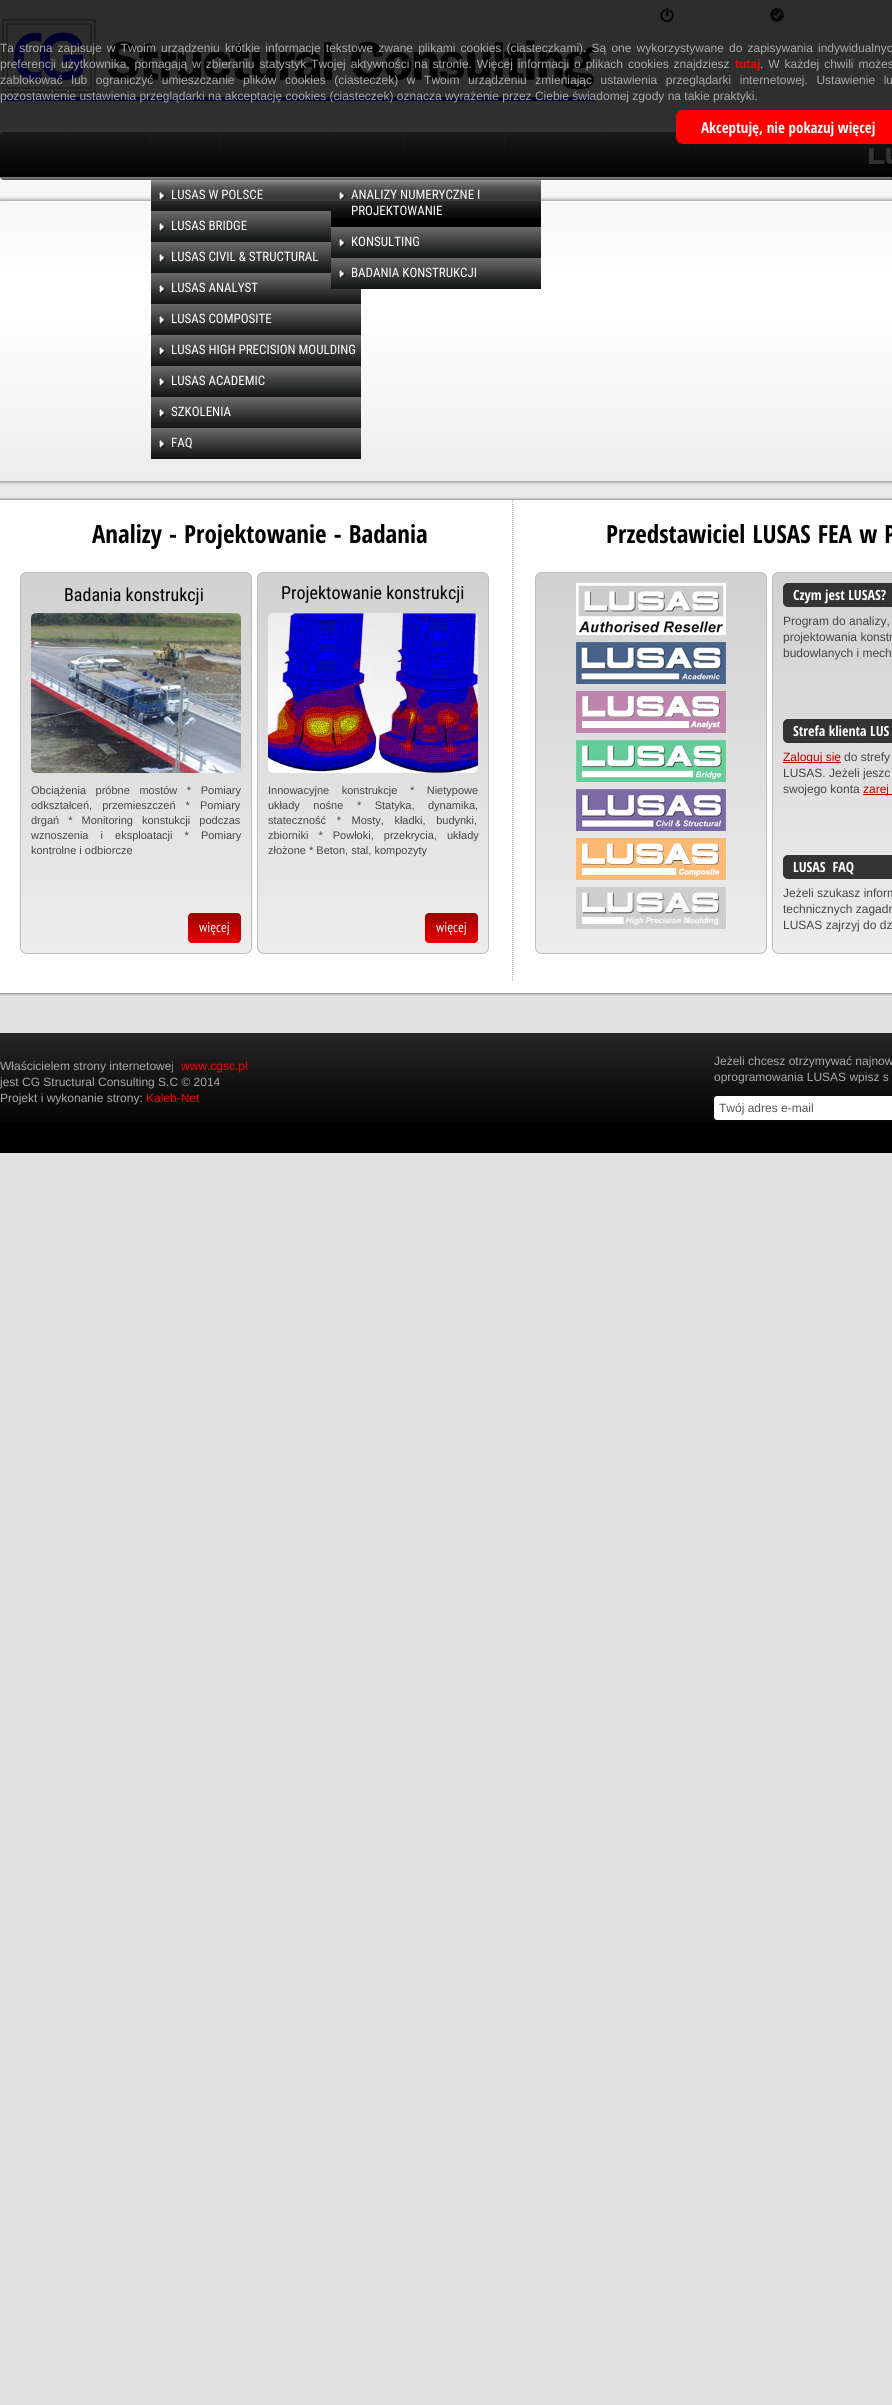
import math
import cairo

surface = cairo.ImageSurface(cairo.FORMAT_RGB24, 892, 2405)
ctx = cairo.Context(surface)
options = cairo.FontOptions()
options.set_hint_metrics(cairo.HINT_METRICS_OFF)
options.set_hint_style(cairo.HINT_STYLE_NONE)
ctx.set_font_options(options)
ctx.set_miter_limit(4)


def spaced_text(x, y, s, letter, word):
    ctx.move_to(x, y)
    for ch in s:
        ctx.show_text(ch)
        ctx.rel_move_to(letter + word * (ch == ' '), 0)


def round_rect(x, y, w, h, r):
    ctx.new_sub_path()
    for i, (u, v) in enumerate([(x + w - r, y + h - r), (x + r, y + h - r), (x + r, y + r), (x + w - r, y + r)]):
        ctx.arc(u, v, r, i * math.pi / 2, (i + 1) * math.pi / 2)
    ctx.close_path()


def shadow(x, y, w, h, r, blur, alpha):
    ctx.push_group_with_content(cairo.CONTENT_ALPHA)
    ctx.set_operator(cairo.OPERATOR_SOURCE)
    for i in range(15, -16, -2):
        e = blur * i / 6
        if min(w, h) + 2 * e > 0:
            ctx.set_source_rgba(0, 0, 0, alpha * math.erfc((i - 1) / 8.5) / 2)
            round_rect(x - e, y - e, w + 2 * e, h + 2 * e, max(0, min(r + e + blur * .6, min(w, h) / 2 + e)))
            ctx.fill()
    ctx.mask(ctx.pop_group())


def picture(path, x, y, w, h):
    ctx.save()
    ctx.set_source_surface(cairo.ImageSurface.create_from_png(path), x, y)
    ctx.rectangle(x, y, w, h)
    ctx.fill()
    ctx.restore()


ctx.set_source_rgb(0.886, 0.886, 0.886)
ctx.paint()
picture("img1.png", 0, 41, 892, 459)
ctx.set_source_rgb(0, 0, 0)
ctx.rectangle(0, 1123, 892, 30)
ctx.fill()
picture("img2.png", 0, 1033, 892, 90)
picture("img3.png", 660, 8, 14, 14)
picture("img4.png", 770, 8, 14, 14)
picture("img5.png", 2, 19, 594, 82)
picture("img7.png", 0, 132, 892, 48)
picture("img6.png", 869, 148, 23, 19)
picture("img8.png", 69, 132, 1, 34)
picture("img8.png", 150, 132, 1, 34)
picture("img8.png", 330, 132, 1, 34)
picture("img8.png", 504, 132, 1, 34)
picture("img8.png", 602, 132, 1, 34)
picture("img9.png", 688, 144, 1, 22)
picture("img8.png", 220, 132, 1, 34)
picture("img10.png", 151, 180, 180, 31)
picture("img11.png", 159, 192, 7, 9)
picture("img8.png", 404, 132, 1, 34)
picture("img13.png", 331, 180, 210, 38)
picture("img11.png", 339, 192, 7, 9)
ctx.save()
ctx.rectangle(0, 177, 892, 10)
ctx.clip()
ctx.set_source_rgb(1, 1, 1)
shadow(0, 0, 892, 177, 0, 5, 1)
ctx.restore()
ctx.set_source_rgba(0, 0, 0, 0.8)
ctx.rectangle(0, 0, 892, 177)
ctx.fill()
ctx.select_font_face("Liberation Sans")
ctx.set_font_size(12)
ctx.set_source_rgb(0.667, 0.667, 0.667)
spaced_text(0, 52, "Ta strona zapisuje w Twoim urządzeniu krótkie informacje tekstowe zwane plikami cookies (ciasteczkami). Są one wykorzystywane do zapisywania indywidualnyc", 0, 1.8)
spaced_text(0, 68, "preferencji użytkownika, pomagają w zbieraniu statystyk Twojej aktywności na stronie. Więcej informacji o plikach cookies znajdziesz", 0, 1.6)
ctx.select_font_face("Liberation Sans", cairo.FONT_SLANT_NORMAL, cairo.FONT_WEIGHT_BOLD)
ctx.set_source_rgb(1, 0, 0)
ctx.move_to(735, 68)
ctx.show_text("tutaj")
ctx.select_font_face("Liberation Sans")
ctx.set_source_rgb(0.667, 0.667, 0.667)
spaced_text(760, 68, ". W każdej chwili możes", 0, 1.6)
spaced_text(0, 84, "zablokować lub ograniczyć umieszczanie plików cookies (ciasteczek) w Twoim urządzeniu zmieniając ustawienia przeglądarki internetowej. Ustawienie lu", 0, 5.25)
ctx.move_to(0, 100)
ctx.show_text("pozostawienie ustawienia przeglądarki na akceptację cookies (ciasteczek) oznacza wyrażenie przez Ciebie świadomej zgody na takie praktyki.")
ctx.set_source_rgb(1, 0, 0)
round_rect(676, 110, 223, 34, 7)
ctx.fill()
ctx.select_font_face("Open Sans Condensed", cairo.FONT_SLANT_NORMAL, cairo.FONT_WEIGHT_BOLD)
ctx.set_font_size(15)
ctx.set_source_rgb(1, 1, 1)
ctx.move_to(701, 133)
ctx.show_text("Akceptuję, nie pokazuj więcej")
ctx.select_font_face("Liberation Sans")
ctx.set_font_size(12)
ctx.set_source_rgb(0.667, 0.667, 0.667)
ctx.move_to(0, 1070)
ctx.show_text("Właścicielem strony internetowej")
ctx.set_source_rgb(1, 0, 0)
ctx.move_to(181, 1070)
ctx.show_text("www.cgsc.pl")
ctx.set_source_rgb(0.667, 0.667, 0.667)
ctx.move_to(0, 1086)
ctx.show_text("jest CG Structural Consulting S.C © 2014")
ctx.move_to(0, 1102)
ctx.show_text("Projekt i wykonanie strony:")
ctx.set_source_rgb(1, 0, 0)
ctx.move_to(146, 1102)
ctx.show_text("Kaleb-Net")
ctx.set_source_rgb(0.667, 0.667, 0.667)
ctx.move_to(714, 1065)
ctx.show_text("Jeżeli chcesz otrzymywać najnow")
ctx.move_to(714, 1081)
ctx.show_text("oprogramowania LUSAS wpisz s")
ctx.set_source_rgb(1, 1, 1)
round_rect(714, 1096, 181, 24, 3)
ctx.fill()
ctx.set_source_rgb(0.333, 0.333, 0.333)
ctx.move_to(719, 1112)
ctx.show_text("Twój adres e-mail")
ctx.select_font_face("Roboto Condensed")
ctx.set_font_size(13)
ctx.set_source_rgb(1, 1, 1)
ctx.move_to(171, 199)
ctx.show_text("LUSAS W POLSCE")
picture("img10.png", 151, 211, 180, 31)
picture("img11.png", 159, 223, 7, 9)
ctx.move_to(171, 230)
ctx.show_text("LUSAS BRIDGE")
picture("img10.png", 151, 242, 180, 31)
picture("img11.png", 159, 254, 7, 9)
ctx.move_to(171, 261)
ctx.show_text("LUSAS CIVIL & STRUCTURAL")
picture("img12.png", 151, 273, 210, 31)
picture("img11.png", 159, 285, 7, 9)
ctx.move_to(171, 292)
ctx.show_text("LUSAS ANALYST")
picture("img12.png", 151, 304, 210, 31)
picture("img11.png", 159, 316, 7, 9)
ctx.move_to(171, 323)
ctx.show_text("LUSAS COMPOSITE")
picture("img12.png", 151, 335, 210, 31)
picture("img11.png", 159, 347, 7, 9)
ctx.move_to(171, 354)
ctx.show_text("LUSAS HIGH PRECISION MOULDING")
picture("img12.png", 151, 366, 210, 31)
picture("img11.png", 159, 378, 7, 9)
ctx.move_to(171, 385)
ctx.show_text("LUSAS ACADEMIC")
picture("img12.png", 151, 397, 210, 31)
picture("img11.png", 159, 409, 7, 9)
ctx.move_to(171, 416)
ctx.show_text("SZKOLENIA")
picture("img12.png", 151, 428, 210, 31)
picture("img11.png", 159, 440, 7, 9)
ctx.move_to(171, 447)
ctx.show_text("FAQ")
ctx.set_source_rgb(0, 0, 0)
ctx.rectangle(331, 218, 210, 9)
ctx.fill()
ctx.set_source_rgb(1, 1, 1)
ctx.move_to(351, 199)
ctx.show_text("ANALIZY NUMERYCZNE I")
ctx.move_to(351, 215)
ctx.show_text("PROJEKTOWANIE")
picture("img12.png", 331, 227, 210, 31)
picture("img11.png", 339, 239, 7, 9)
ctx.move_to(351, 246)
ctx.show_text("KONSULTING")
picture("img12.png", 331, 258, 210, 31)
picture("img11.png", 339, 270, 7, 9)
ctx.move_to(351, 277)
ctx.show_text("BADANIA KONSTRUKCJI")
ctx.save()
ctx.set_fill_rule(cairo.FILL_RULE_EVEN_ODD)
ctx.new_path()
ctx.move_to(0, 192)
ctx.line_to(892, 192)
ctx.line_to(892, 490)
ctx.line_to(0, 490)
ctx.close_path()
ctx.move_to(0, 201)
ctx.line_to(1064, 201)
ctx.line_to(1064, 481)
ctx.line_to(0, 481)
ctx.close_path()
ctx.clip()
ctx.set_source_rgb(0.333, 0.333, 0.333)
shadow(0, 201, 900, 280, 0, 2.5, 1)
ctx.restore()
ctx.set_source_rgb(0.2, 0.2, 0.2)
shadow(0, 500, 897, 493, 0, 1.5, 1)
ctx.set_source_rgb(1, 1, 1)
ctx.rectangle(0, 500, 892, 493)
ctx.fill()
picture("img14.png", 512, 500, 1, 481)
ctx.select_font_face("Open Sans Condensed", cairo.FONT_SLANT_NORMAL, cairo.FONT_WEIGHT_BOLD)
ctx.set_font_size(25)
ctx.set_source_rgb(0, 0, 0)
spaced_text(92, 543, "Analizy - Projektowanie - Badania", 0, 1)
ctx.save()
round_rect(20, 572, 232, 382, 7)
ctx.clip()
gradient = cairo.LinearGradient(136, 573, 136, 953)
gradient.add_color_stop_rgba(0, 0.82, 0.82, 0.82, 1)
gradient.add_color_stop_rgba(1, 0.929, 0.929, 0.929, 1)
ctx.set_source(gradient)
ctx.rectangle(20, 573, 232, 380)
ctx.fill()
ctx.restore()
round_rect(20.5, 572.5, 231, 381, 6.5)
ctx.set_source_rgb(0.733, 0.733, 0.733)
ctx.set_line_width(1)
ctx.stroke()
ctx.select_font_face("Roboto Condensed")
ctx.set_font_size(18)
ctx.set_source_rgb(0, 0, 0)
ctx.move_to(64, 601)
ctx.show_text("Badania konstrukcji")
picture("img15.png", 31, 613, 210, 160)
ctx.select_font_face("Liberation Sans")
ctx.set_font_size(11)
ctx.set_source_rgb(0.267, 0.267, 0.267)
spaced_text(31, 794, "Obciążenia próbne mostów * Pomiary", 0, 6.5)
spaced_text(31, 809, "odkształceń, przemieszczeń * Pomiary", 0, 7)
spaced_text(31, 824, "drgań * Monitoring konstukcji podczas", 0, 6)
spaced_text(31, 839, "wznoszenia i eksploatacji * Pomiary", 0, 9)
ctx.move_to(31, 854)
ctx.show_text("kontrolne i odbiorcze")
gradient = cairo.LinearGradient(215, 913, 215, 943)
gradient.add_color_stop_rgba(0, 0.6, 0, 0, 1)
gradient.add_color_stop_rgba(1, 0.933, 0, 0, 1)
ctx.set_source(gradient)
round_rect(188, 913, 53, 30, 4)
ctx.fill()
ctx.select_font_face("PT Sans Narrow")
ctx.set_font_size(14)
ctx.set_source_rgb(1, 1, 1)
ctx.move_to(199, 932)
ctx.show_text("więcej")
ctx.save()
round_rect(257, 572, 232, 382, 7)
ctx.clip()
gradient = cairo.LinearGradient(373, 573, 373, 953)
gradient.add_color_stop_rgba(0, 0.82, 0.82, 0.82, 1)
gradient.add_color_stop_rgba(1, 0.929, 0.929, 0.929, 1)
ctx.set_source(gradient)
ctx.rectangle(257, 573, 232, 380)
ctx.fill()
ctx.restore()
round_rect(257.5, 572.5, 231, 381, 6.5)
ctx.set_source_rgb(0.733, 0.733, 0.733)
ctx.stroke()
ctx.select_font_face("Roboto Condensed")
ctx.set_font_size(18)
ctx.set_source_rgb(0, 0, 0)
ctx.move_to(281, 599)
ctx.show_text("Projektowanie konstrukcji")
picture("img16.png", 268, 613, 210, 160)
ctx.select_font_face("Liberation Sans")
ctx.set_font_size(11)
ctx.set_source_rgb(0.267, 0.267, 0.267)
spaced_text(268, 794, "Innowacyjne konstrukcje * Nietypowe", 0, 9.5)
spaced_text(268, 809, "układy nośne * Statyka, dynamika,", 0, 10.5)
spaced_text(268, 824, "stateczność * Mosty, kładki, budynki,", 0, 7.5)
spaced_text(268, 839, "zbiorniki * Powłoki, przekrycia, układy", 0, 7)
ctx.move_to(268, 854)
ctx.show_text("złożone * Beton, stal, kompozyty")
gradient = cairo.LinearGradient(452, 913, 452, 943)
gradient.add_color_stop_rgba(0, 0.6, 0, 0, 1)
gradient.add_color_stop_rgba(1, 0.933, 0, 0, 1)
ctx.set_source(gradient)
round_rect(425, 913, 53, 30, 4)
ctx.fill()
ctx.select_font_face("PT Sans Narrow")
ctx.set_font_size(14)
ctx.set_source_rgb(1, 1, 1)
ctx.move_to(436, 932)
ctx.show_text("więcej")
ctx.select_font_face("Open Sans Condensed", cairo.FONT_SLANT_NORMAL, cairo.FONT_WEIGHT_BOLD)
ctx.set_font_size(25)
ctx.set_source_rgb(0, 0, 0)
spaced_text(606, 543, "Przedstawiciel LUSAS FEA w P", 0, 1)
ctx.save()
round_rect(535, 572, 232, 382, 7)
ctx.clip()
gradient = cairo.LinearGradient(651, 573, 651, 953)
gradient.add_color_stop_rgba(0, 0.82, 0.82, 0.82, 1)
gradient.add_color_stop_rgba(1, 0.929, 0.929, 0.929, 1)
ctx.set_source(gradient)
ctx.rectangle(535, 573, 232, 380)
ctx.fill()
ctx.restore()
round_rect(535.5, 572.5, 231, 381, 6.5)
ctx.set_source_rgb(0.733, 0.733, 0.733)
ctx.stroke()
picture("img17.png", 576, 583, 150, 52)
picture("img18.png", 576, 642, 150, 42)
picture("img19.png", 576, 691, 150, 42)
picture("img20.png", 576, 740, 150, 42)
picture("img21.png", 576, 789, 150, 42)
picture("img22.png", 576, 838, 150, 42)
picture("img23.png", 576, 887, 150, 42)
ctx.save()
round_rect(772, 572, 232, 382, 7)
ctx.clip()
gradient = cairo.LinearGradient(888, 573, 888, 953)
gradient.add_color_stop_rgba(0, 0.82, 0.82, 0.82, 1)
gradient.add_color_stop_rgba(1, 0.929, 0.929, 0.929, 1)
ctx.set_source(gradient)
ctx.rectangle(772, 573, 120, 380)
ctx.fill()
ctx.restore()
round_rect(772.5, 572.5, 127, 381, 6.5)
ctx.stroke()
ctx.set_source_rgb(0.2, 0.2, 0.2)
round_rect(783, 583, 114, 24, 5)
ctx.fill()
ctx.set_font_size(14)
ctx.set_source_rgb(1, 1, 1)
ctx.move_to(793, 600)
ctx.show_text("Czym jest LUSAS?")
ctx.select_font_face("Liberation Sans")
ctx.set_font_size(12)
ctx.set_source_rgb(0.267, 0.267, 0.267)
ctx.move_to(783, 625)
ctx.show_text("Program do analizy,")
ctx.move_to(783, 641)
ctx.show_text("projektowania konstr")
ctx.move_to(783, 657)
ctx.show_text("budowlanych i mech")
ctx.set_source_rgb(0.2, 0.2, 0.2)
round_rect(783, 719, 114, 24, 5)
ctx.fill()
ctx.select_font_face("Open Sans Condensed", cairo.FONT_SLANT_NORMAL, cairo.FONT_WEIGHT_BOLD)
ctx.set_font_size(14)
ctx.set_source_rgb(1, 1, 1)
ctx.move_to(793, 736)
ctx.show_text("Strefa klienta LUS")
ctx.set_source_rgb(0.733, 0, 0)
ctx.rectangle(783, 762, 58, 1)
ctx.fill()
ctx.select_font_face("Liberation Sans")
ctx.set_font_size(12)
ctx.move_to(783, 761)
ctx.show_text("Zaloguj się")
ctx.set_source_rgb(0.267, 0.267, 0.267)
ctx.move_to(844, 761)
ctx.show_text("do strefy")
ctx.move_to(783, 777)
ctx.show_text("LUSAS. Jeżeli jeszc")
ctx.move_to(783, 793)
ctx.show_text("swojego konta")
ctx.set_source_rgb(0.733, 0, 0)
ctx.rectangle(863, 794, 29, 1)
ctx.fill()
ctx.move_to(863, 793)
ctx.show_text("zarej")
ctx.set_source_rgb(0.2, 0.2, 0.2)
round_rect(783, 855, 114, 24, 5)
ctx.fill()
ctx.select_font_face("Open Sans Condensed", cairo.FONT_SLANT_NORMAL, cairo.FONT_WEIGHT_BOLD)
ctx.set_font_size(14)
ctx.set_source_rgb(1, 1, 1)
ctx.move_to(793, 872)
ctx.show_text("LUSAS  FAQ")
ctx.select_font_face("Liberation Sans")
ctx.set_font_size(12)
ctx.set_source_rgb(0.267, 0.267, 0.267)
ctx.move_to(783, 897)
ctx.show_text("Jeżeli szukasz inform")
ctx.move_to(783, 913)
ctx.show_text("technicznych zagadn")
ctx.move_to(783, 929)
ctx.show_text("LUSAS zajrzyj do dz")
surface.write_to_png("page.png")
